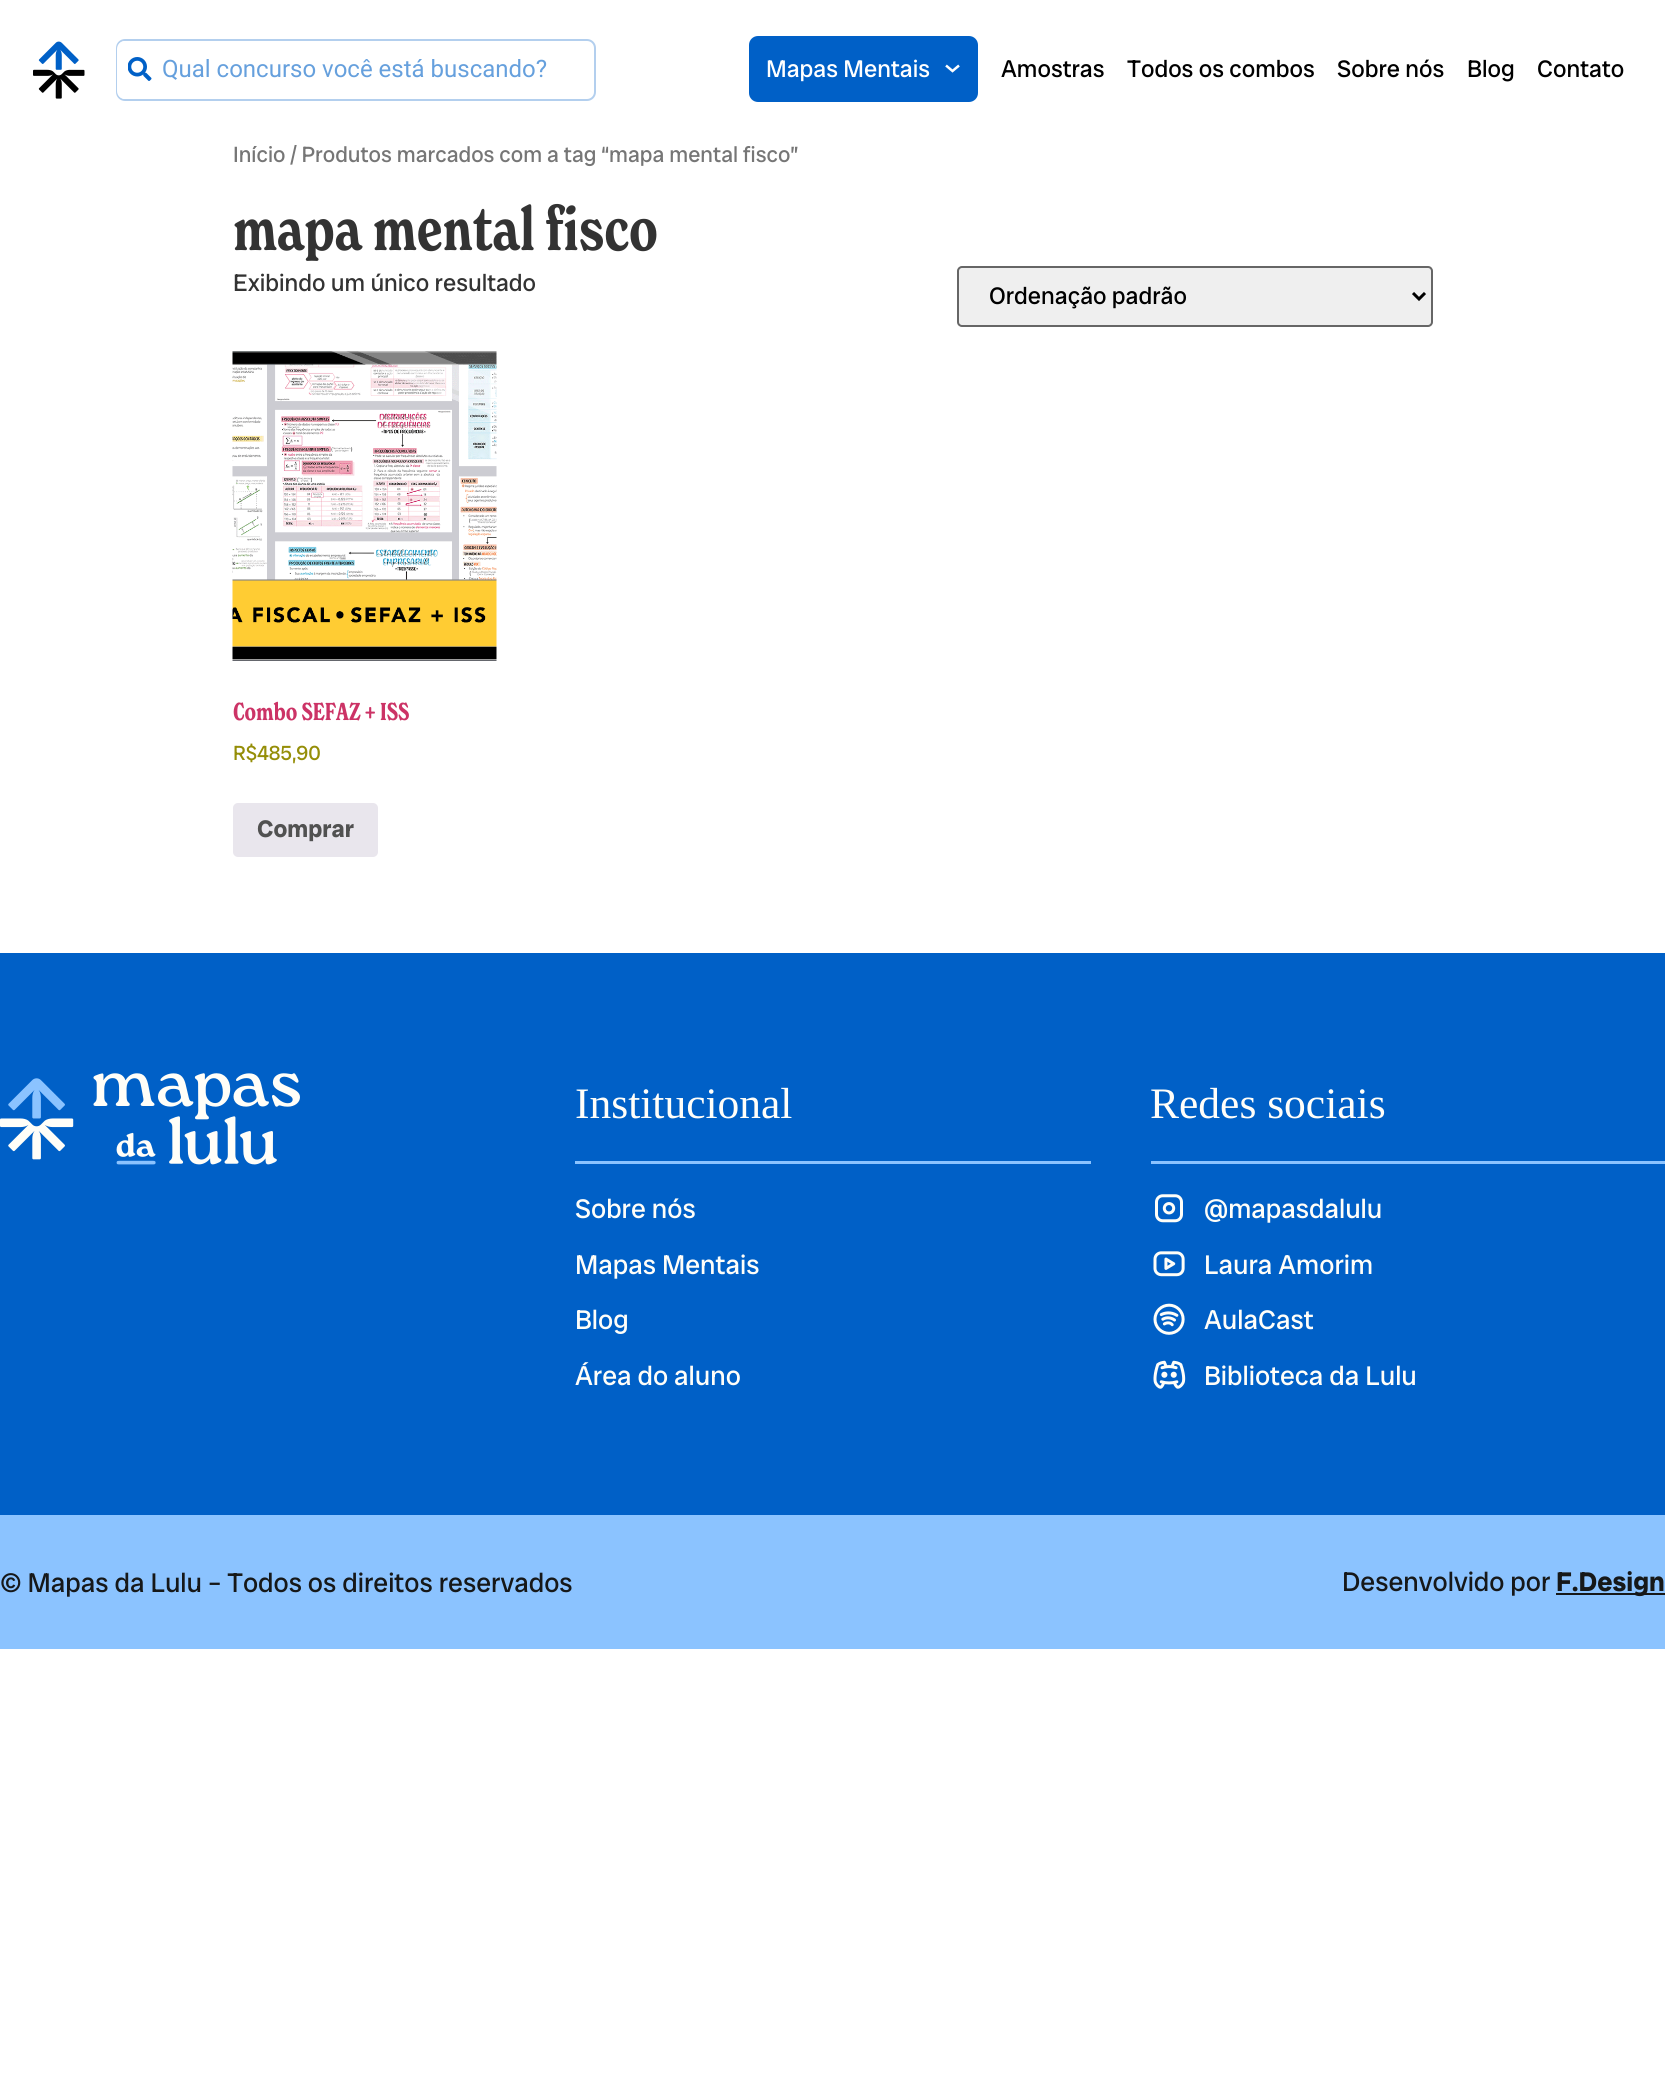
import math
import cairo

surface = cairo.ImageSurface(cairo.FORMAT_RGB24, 1665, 2100)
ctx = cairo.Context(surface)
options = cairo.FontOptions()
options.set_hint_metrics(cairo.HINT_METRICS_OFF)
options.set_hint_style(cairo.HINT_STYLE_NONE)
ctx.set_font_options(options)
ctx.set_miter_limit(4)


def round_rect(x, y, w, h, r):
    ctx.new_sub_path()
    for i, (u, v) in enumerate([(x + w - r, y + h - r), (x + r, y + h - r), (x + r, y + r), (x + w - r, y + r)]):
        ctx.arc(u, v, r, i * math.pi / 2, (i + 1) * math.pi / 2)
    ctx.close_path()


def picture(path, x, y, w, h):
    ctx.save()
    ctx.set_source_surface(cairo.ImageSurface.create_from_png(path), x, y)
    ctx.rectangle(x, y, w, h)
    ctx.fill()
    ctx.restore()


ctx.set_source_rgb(1, 1, 1)
ctx.paint()
picture("img1.png", 33, 41, 52, 58)
round_rect(117, 40, 478, 60, 8)
ctx.set_source_rgb(0.702, 0.812, 0.933)
ctx.stroke()
ctx.set_source_rgb(1, 1, 1)
ctx.new_path()
ctx.move_to(125, 41)
ctx.line_to(162, 41)
ctx.line_to(162, 99)
ctx.line_to(125, 99)
ctx.curve_to(120.5, 99, 117, 95.5, 117, 91)
ctx.line_to(117, 49)
ctx.curve_to(117, 44.5, 120.5, 41, 125, 41)
ctx.close_path()
ctx.fill()
picture("img2.png", 128, 57, 24, 24)
ctx.select_font_face("Roboto")
ctx.set_font_size(24)
ctx.set_source_rgb(0.4, 0.627, 0.867)
ctx.move_to(162, 77)
ctx.show_text("Qual concurso você está buscando?")
ctx.set_source_rgb(0, 0.376, 0.78)
round_rect(749, 36, 229, 66, 9)
ctx.fill()
ctx.select_font_face("Radio Canada Big")
ctx.set_source_rgb(1, 1, 1)
ctx.move_to(766, 77)
ctx.show_text("Mapas Mentais")
ctx.new_path()
ctx.move_to(946, 65.5)
ctx.line_to(952.5, 71)
ctx.line_to(959, 65.5)
ctx.set_line_width(2.5)
ctx.stroke()
ctx.set_source_rgb(0, 0, 0)
ctx.move_to(1001, 77)
ctx.show_text("Amostras")
ctx.move_to(1127, 77)
ctx.show_text("Todos os combos")
ctx.move_to(1337, 77)
ctx.show_text("Sobre nós")
ctx.move_to(1467, 77)
ctx.show_text("Blog")
ctx.move_to(1537, 77)
ctx.show_text("Contato")
ctx.set_font_size(22.1)
ctx.set_source_rgb(0.463, 0.463, 0.463)
ctx.move_to(233, 162)
ctx.show_text("Início / Produtos marcados com a tag “mapa mental fisco”")
ctx.select_font_face("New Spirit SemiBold")
ctx.set_font_size(60)
ctx.set_source_rgb(0.2, 0.2, 0.2)
ctx.move_to(233, 250)
ctx.show_text("mapa mental fisco")
ctx.select_font_face("Radio Canada Big")
ctx.set_font_size(24)
ctx.move_to(233, 291)
ctx.show_text("Exibindo um único resultado")
ctx.set_source_rgb(0.937, 0.937, 0.937)
round_rect(958, 267, 474, 59, 4)
ctx.fill_preserve()
ctx.set_source_rgb(0.4, 0.4, 0.4)
ctx.set_line_width(2)
ctx.stroke()
ctx.new_path()
ctx.move_to(1413, 293)
ctx.line_to(1419, 299)
ctx.line_to(1425, 293)
ctx.set_source_rgb(0, 0, 0)
ctx.set_line_width(3)
ctx.stroke()
ctx.move_to(989, 304)
ctx.show_text("Ordenação padrão")
picture("img3.png", 232, 351, 265, 310)
ctx.select_font_face("New Spirit SemiBold")
ctx.set_source_rgb(0.8, 0.2, 0.4)
ctx.move_to(233, 720)
ctx.show_text("Combo SEFAZ + ISS")
ctx.select_font_face("Radio Canada Big")
ctx.set_font_size(20.5)
ctx.set_source_rgb(0.584, 0.557, 0.035)
ctx.move_to(233, 760)
ctx.show_text("R$485,90")
ctx.set_source_rgb(0.914, 0.902, 0.929)
round_rect(233, 803, 145, 54, 5)
ctx.fill()
ctx.select_font_face("Radio Canada Big", cairo.FONT_SLANT_NORMAL, cairo.FONT_WEIGHT_BOLD)
ctx.set_font_size(24)
ctx.set_source_rgb(0.318, 0.318, 0.318)
ctx.move_to(257, 837)
ctx.show_text("Comprar")
ctx.set_source_rgb(0, 0.376, 0.78)
ctx.rectangle(0, 953, 1665, 562)
ctx.fill()
picture("img4.png", 0, 1073, 300, 92)
ctx.set_source_rgb(0.545, 0.765, 1)
ctx.rectangle(575, 1161, 516, 3)
ctx.fill()
ctx.select_font_face("Liberation Serif")
ctx.set_font_size(43.5)
ctx.set_source_rgb(1, 0.996, 0.973)
ctx.move_to(575, 1118)
ctx.show_text("Institucional")
ctx.select_font_face("Radio Canada Big")
ctx.set_font_size(27)
ctx.move_to(575, 1218)
ctx.show_text("Sobre nós")
ctx.move_to(575, 1274)
ctx.show_text("Mapas Mentais")
ctx.move_to(575, 1329)
ctx.show_text("Blog")
ctx.move_to(575, 1385)
ctx.show_text("Área do aluno")
ctx.set_source_rgb(0.545, 0.765, 1)
ctx.rectangle(1151, 1161, 514, 3)
ctx.fill()
ctx.select_font_face("Liberation Serif")
ctx.set_font_size(43.5)
ctx.set_source_rgb(1, 0.996, 0.973)
ctx.move_to(1150, 1118)
ctx.show_text("Redes sociais")
picture("img5.png", 1155, 1194, 28, 29)
ctx.select_font_face("Radio Canada Big")
ctx.set_font_size(27)
ctx.move_to(1204, 1218)
ctx.show_text("@mapasdalulu")
picture("img6.png", 1153, 1251, 32, 26)
ctx.move_to(1204, 1274)
ctx.show_text("Laura Amorim")
picture("img7.png", 1153, 1303, 32, 32)
ctx.move_to(1204, 1329)
ctx.show_text("AulaCast")
picture("img8.png", 1153, 1360, 33, 29)
ctx.move_to(1204, 1385)
ctx.show_text("Biblioteca da Lulu")
ctx.set_source_rgb(0.545, 0.765, 1)
ctx.rectangle(0, 1515, 1665, 134)
ctx.fill()
ctx.set_source_rgb(0.086, 0.094, 0.098)
ctx.move_to(0, 1592)
ctx.show_text("© Mapas da Lulu – Todos os direitos reservados")
ctx.move_to(1342, 1591)
ctx.show_text("Desenvolvido por")
ctx.rectangle(1556, 1593, 109, 2)
ctx.fill()
ctx.select_font_face("Radio Canada Big", cairo.FONT_SLANT_NORMAL, cairo.FONT_WEIGHT_BOLD)
ctx.move_to(1556, 1591)
ctx.show_text("F.Design")
surface.write_to_png("page.png")
